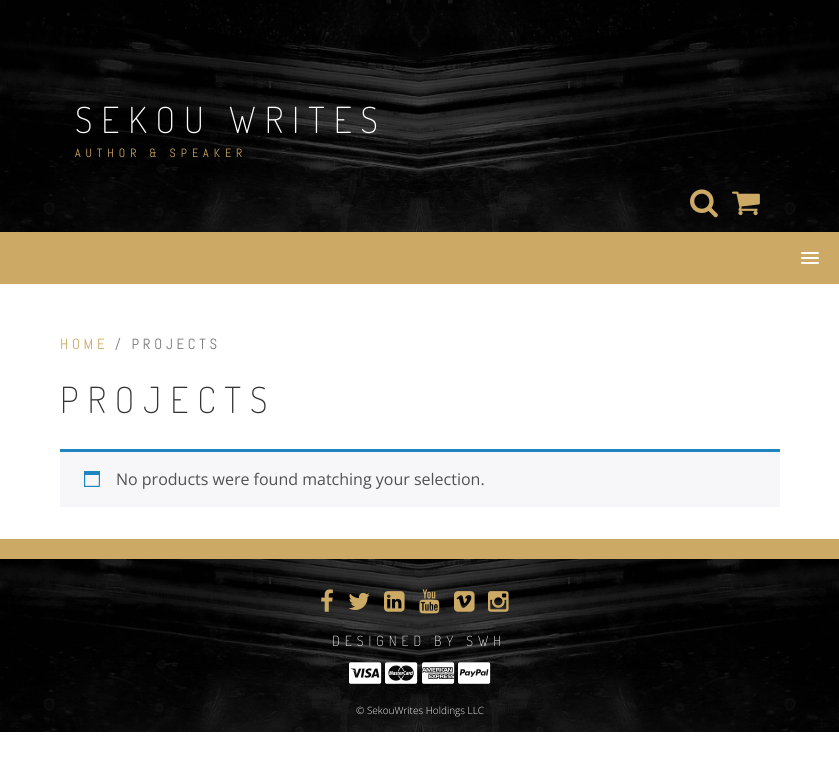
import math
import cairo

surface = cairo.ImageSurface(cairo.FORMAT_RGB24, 839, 760)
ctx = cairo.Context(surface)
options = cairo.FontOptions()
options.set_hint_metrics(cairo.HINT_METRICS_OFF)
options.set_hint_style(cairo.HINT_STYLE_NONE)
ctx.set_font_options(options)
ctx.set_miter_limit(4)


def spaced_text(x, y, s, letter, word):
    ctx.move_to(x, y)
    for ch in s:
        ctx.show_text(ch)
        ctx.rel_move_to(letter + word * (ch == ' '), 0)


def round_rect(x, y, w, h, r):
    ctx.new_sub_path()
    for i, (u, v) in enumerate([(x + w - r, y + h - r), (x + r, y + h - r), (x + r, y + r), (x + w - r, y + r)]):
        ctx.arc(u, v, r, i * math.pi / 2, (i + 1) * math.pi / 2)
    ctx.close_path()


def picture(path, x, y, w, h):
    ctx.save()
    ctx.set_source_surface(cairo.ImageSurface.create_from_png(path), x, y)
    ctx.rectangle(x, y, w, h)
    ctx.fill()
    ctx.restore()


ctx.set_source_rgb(1, 1, 1)
ctx.paint()
picture("img1.png", 0, 0, 839, 232)
ctx.select_font_face("Dosis ExtraLight")
ctx.set_font_size(36)
ctx.set_source_rgb(1, 1, 1)
spaced_text(75, 133, "SEKOU WRITES", 9, 0)
ctx.select_font_face("Abel")
ctx.set_font_size(12)
ctx.set_source_rgb(0.8, 0.667, 0.4)
spaced_text(75, 157, "AUTHOR & SPEAKER", 5, 0)
picture("img2.png", 690, 189, 28, 29)
picture("img3.png", 732, 191, 28, 25)
ctx.rectangle(0, 232, 839, 52)
ctx.fill()
ctx.set_source_rgb(1, 1, 1)
round_rect(801, 252, 18, 2, 1)
ctx.fill()
round_rect(801, 257, 18, 2, 1)
ctx.fill()
round_rect(801, 262, 18, 2, 1)
ctx.fill()
ctx.set_font_size(14.75)
ctx.set_source_rgb(0.8, 0.667, 0.4)
spaced_text(60, 349, "HOME", 3.75, 0)
ctx.set_source_rgb(0.463, 0.463, 0.463)
spaced_text(115, 349, "/ PROJECTS", 3.75, 0)
ctx.select_font_face("Dosis ExtraLight")
ctx.set_font_size(36)
ctx.set_source_rgb(0.2, 0.2, 0.2)
spaced_text(60, 413, "PROJECTS", 9, 0)
ctx.set_source_rgb(0.965, 0.961, 0.973)
ctx.rectangle(60, 452, 720, 55)
ctx.fill()
ctx.set_source_rgb(0.118, 0.522, 0.745)
ctx.rectangle(60, 449, 720, 3)
ctx.fill()
picture("img4.png", 84, 471, 16, 16)
ctx.select_font_face("Open Sans")
ctx.set_font_size(16)
ctx.set_source_rgb(0.318, 0.318, 0.318)
ctx.move_to(116, 485)
ctx.show_text("No products were found matching your selection.")
picture("img5.png", 0, 559, 839, 173)
ctx.set_source_rgb(0.8, 0.667, 0.4)
ctx.rectangle(0, 539, 839, 20)
ctx.fill()
picture("img6.png", 321, 589, 12, 23)
picture("img7.png", 348, 592, 22, 18)
picture("img8.png", 384, 591, 21, 21)
picture("img9.png", 419, 589, 21, 25)
picture("img10.png", 454, 591, 21, 21)
picture("img11.png", 488, 591, 21, 21)
ctx.select_font_face("Dosis ExtraLight")
ctx.set_font_size(14)
ctx.set_source_rgb(1, 1, 1)
spaced_text(332, 646, "DESIGNED BY SWH", 5, 0)
picture("img12.png", 349, 662, 33, 22)
picture("img13.png", 385, 662, 33, 22)
picture("img14.png", 422, 662, 33, 22)
picture("img15.png", 458, 662, 33, 22)
ctx.select_font_face("Open Sans Light")
ctx.set_font_size(10)
ctx.set_source_rgb(0.933, 0.933, 0.933)
ctx.move_to(356, 714)
ctx.show_text("© SekouWrites Holdings LLC")
surface.write_to_png("page.png")
